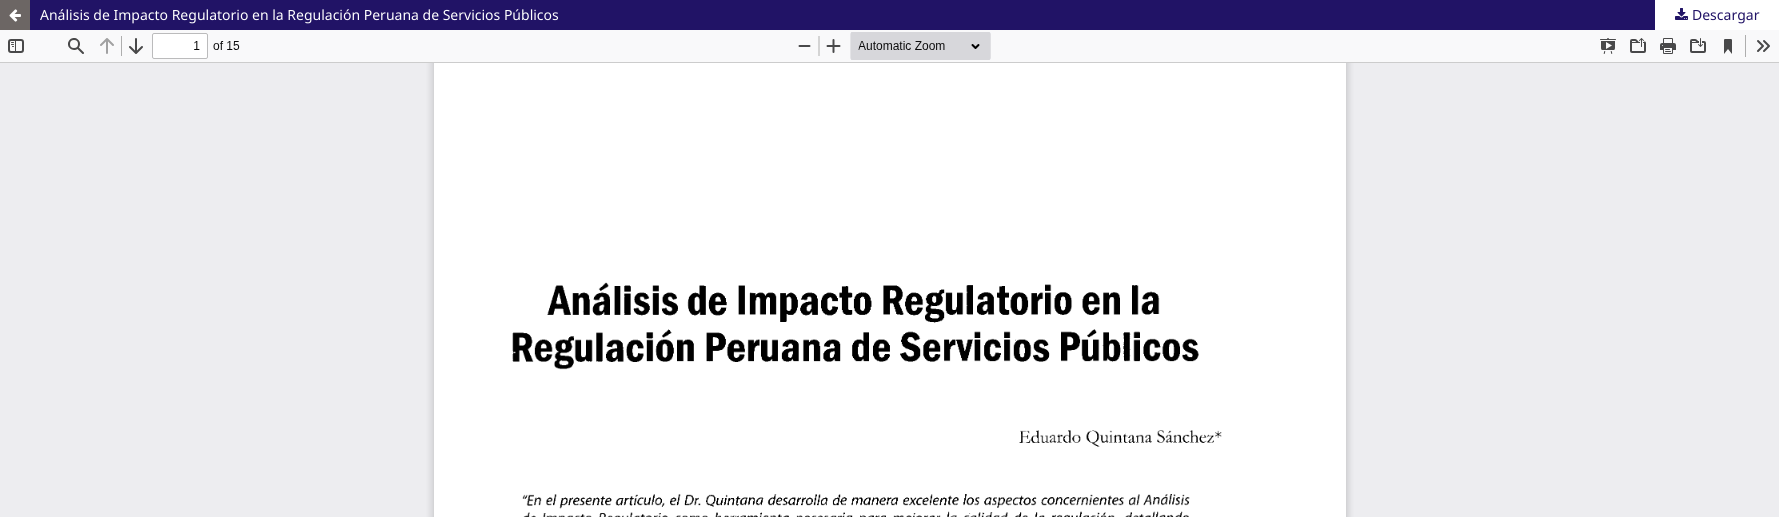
import math
import cairo

surface = cairo.ImageSurface(cairo.FORMAT_RGB24, 1779, 517)
ctx = cairo.Context(surface)
options = cairo.FontOptions()
options.set_hint_metrics(cairo.HINT_METRICS_OFF)
options.set_hint_style(cairo.HINT_STYLE_NONE)
ctx.set_font_options(options)
ctx.set_miter_limit(4)


def picture(path, x, y, w, h):
    ctx.save()
    ctx.set_source_surface(cairo.ImageSurface.create_from_png(path), x, y)
    ctx.rectangle(x, y, w, h)
    ctx.fill()
    ctx.restore()


ctx.set_source_rgb(1, 1, 1)
ctx.paint()
ctx.set_source_rgb(0.129, 0.078, 0.4)
ctx.rectangle(30, 0, 1625, 30)
ctx.fill()
ctx.set_source_rgb(0.424, 0.4, 0.392)
ctx.rectangle(0, 0, 30, 30)
ctx.fill()
picture("img1.png", 9, 9, 12, 13)
ctx.select_font_face("Noto Sans")
ctx.set_font_size(14)
ctx.set_source_rgb(1, 1, 1)
ctx.move_to(40, 20)
ctx.show_text("Análisis de Impacto Regulatorio en la Regulación Peruana de Servicios Públicos")
picture("img2.png", 1675, 8, 13, 12)
ctx.set_source_rgb(0.129, 0.078, 0.4)
ctx.move_to(1692, 20)
ctx.show_text("Descargar")
picture("img3.png", 0, 30, 1779, 487)
surface.write_to_png("page.png")
